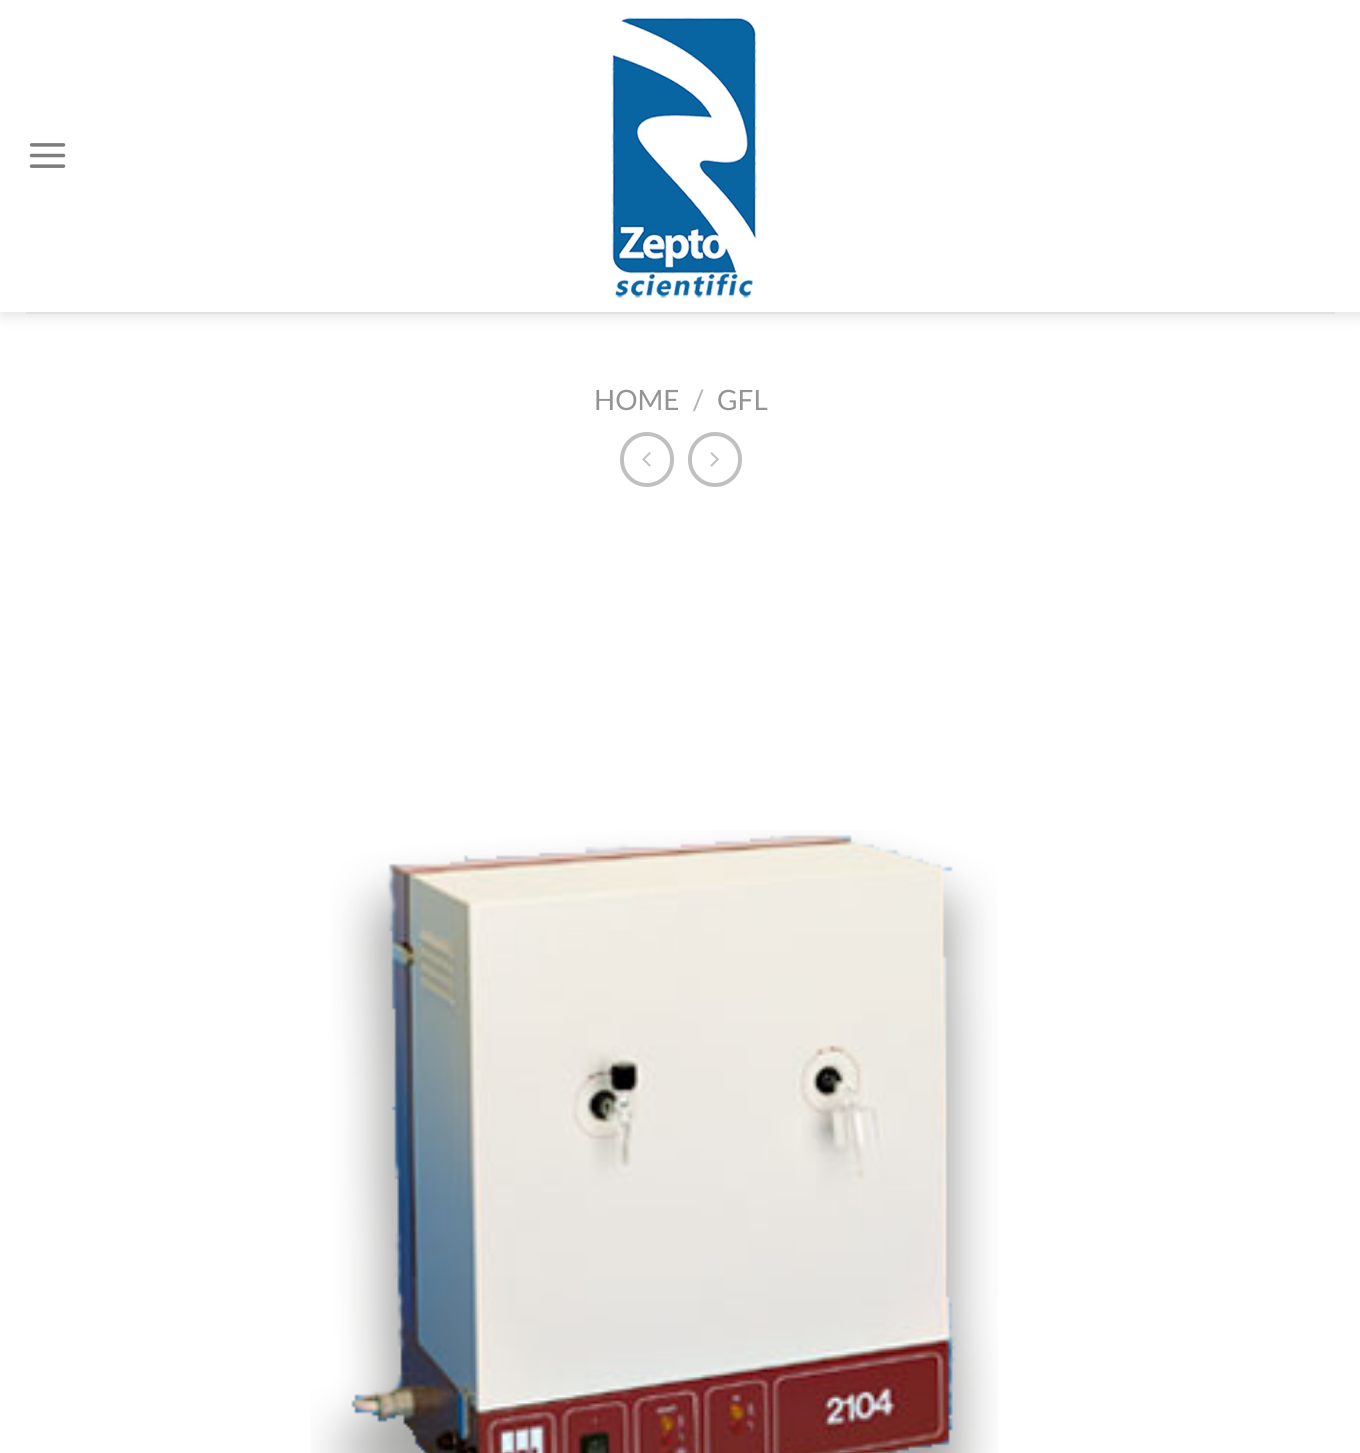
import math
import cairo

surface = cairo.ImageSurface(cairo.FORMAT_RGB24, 1360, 1453)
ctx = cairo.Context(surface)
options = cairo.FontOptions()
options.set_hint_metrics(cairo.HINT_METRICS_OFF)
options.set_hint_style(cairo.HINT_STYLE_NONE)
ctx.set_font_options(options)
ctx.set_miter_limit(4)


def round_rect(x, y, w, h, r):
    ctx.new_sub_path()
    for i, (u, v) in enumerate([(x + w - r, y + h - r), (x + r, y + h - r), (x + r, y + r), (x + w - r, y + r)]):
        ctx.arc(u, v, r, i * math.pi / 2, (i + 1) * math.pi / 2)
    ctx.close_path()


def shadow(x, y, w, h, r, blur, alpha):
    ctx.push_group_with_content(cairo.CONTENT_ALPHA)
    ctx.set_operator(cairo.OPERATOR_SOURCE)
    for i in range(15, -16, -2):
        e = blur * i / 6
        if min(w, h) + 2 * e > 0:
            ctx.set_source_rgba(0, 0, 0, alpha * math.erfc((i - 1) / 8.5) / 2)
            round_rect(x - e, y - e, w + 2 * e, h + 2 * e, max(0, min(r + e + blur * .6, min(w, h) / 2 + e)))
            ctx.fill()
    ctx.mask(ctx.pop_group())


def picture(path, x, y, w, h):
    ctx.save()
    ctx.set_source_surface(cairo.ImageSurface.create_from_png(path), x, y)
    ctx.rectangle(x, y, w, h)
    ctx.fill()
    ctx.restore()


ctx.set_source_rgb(1, 1, 1)
ctx.paint()
ctx.set_source_rgb(0, 0, 0)
shadow(2, 2, 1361, 311, 0, 9, 0.15)
ctx.set_source_rgb(1, 1, 1)
ctx.rectangle(0, 0, 1360, 312)
ctx.fill()
picture("img1.png", 29, 143, 37, 25)
picture("img2.png", 611, 14, 150, 284)
ctx.set_source_rgb(0.878, 0.878, 0.878)
ctx.rectangle(26, 312, 1309, 2)
ctx.fill()
ctx.select_font_face("Lato")
ctx.set_font_size(28)
ctx.set_source_rgb(0.58, 0.58, 0.58)
ctx.move_to(594, 410)
ctx.show_text("HOME")
ctx.set_source_rgb(0.698, 0.698, 0.698)
ctx.move_to(693, 410)
ctx.show_text("/")
ctx.set_source_rgb(0.58, 0.58, 0.58)
ctx.move_to(717, 410)
ctx.show_text("GFL")
round_rect(622, 434, 50, 51, 25)
ctx.set_source_rgb(0.753, 0.753, 0.753)
ctx.set_line_width(4)
ctx.stroke()
picture("img3.png", 642, 452, 9, 15)
round_rect(690, 434, 50, 51, 25)
ctx.stroke()
picture("img4.png", 710, 452, 9, 15)
picture("img5.png", 310, 830, 688, 623)
surface.write_to_png("page.png")
